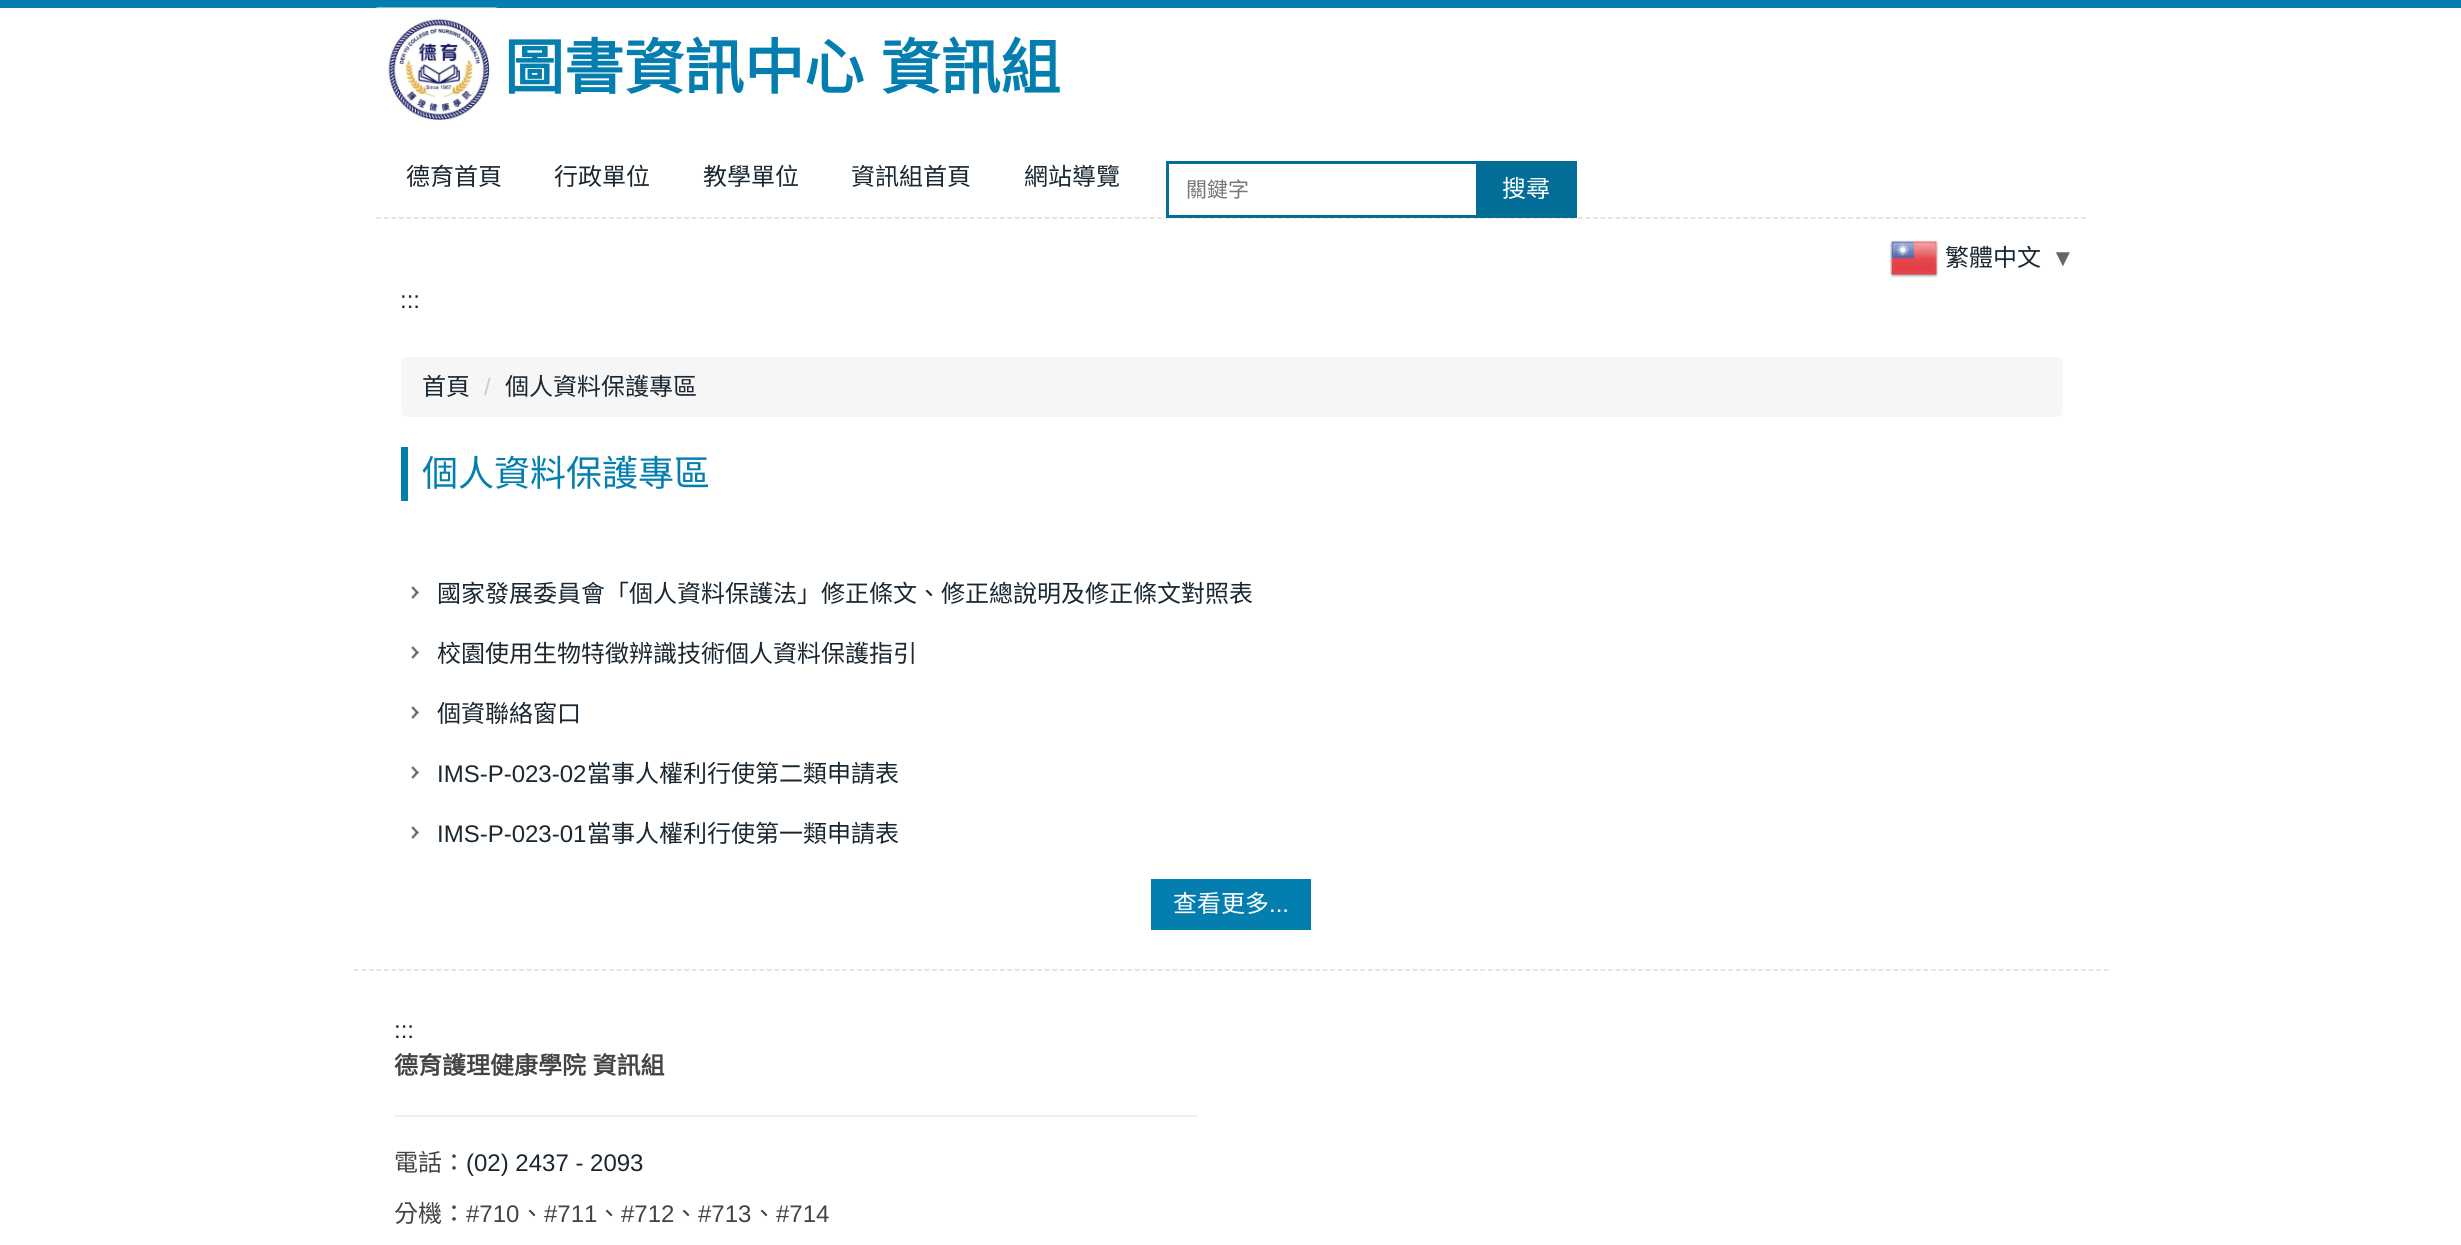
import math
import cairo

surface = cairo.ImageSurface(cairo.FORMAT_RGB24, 2461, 1245)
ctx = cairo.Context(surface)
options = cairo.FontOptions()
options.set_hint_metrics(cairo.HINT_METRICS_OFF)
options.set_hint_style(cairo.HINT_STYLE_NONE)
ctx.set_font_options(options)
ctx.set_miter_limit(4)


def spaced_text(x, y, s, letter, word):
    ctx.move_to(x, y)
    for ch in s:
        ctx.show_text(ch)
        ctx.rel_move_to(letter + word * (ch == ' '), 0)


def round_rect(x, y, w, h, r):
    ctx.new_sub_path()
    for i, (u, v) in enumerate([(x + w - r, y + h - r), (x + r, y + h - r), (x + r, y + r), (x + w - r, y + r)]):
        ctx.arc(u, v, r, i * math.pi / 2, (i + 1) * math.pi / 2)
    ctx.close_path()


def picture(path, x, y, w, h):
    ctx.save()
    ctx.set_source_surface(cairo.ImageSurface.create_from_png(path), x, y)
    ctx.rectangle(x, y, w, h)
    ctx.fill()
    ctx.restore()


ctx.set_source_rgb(1, 1, 1)
ctx.paint()
ctx.set_source_rgb(0.016, 0.494, 0.686)
ctx.rectangle(0, 0, 2461, 8)
ctx.fill()
picture("img1.png", 376, 7, 121, 115)
ctx.select_font_face("Noto Sans CJK TC", cairo.FONT_SLANT_NORMAL, cairo.FONT_WEIGHT_BOLD)
ctx.set_font_size(60)
spaced_text(504, 89, "圖書資訊中心 資訊組", 0, 3)
ctx.new_path()
ctx.move_to(376.5, 218)
ctx.line_to(2086.5, 218)
ctx.set_source_rgb(0.867, 0.867, 0.867)
ctx.set_line_width(1.5)
ctx.set_dash([4.5, 3.01])
ctx.stroke()
ctx.select_font_face("Noto Sans CJK TC")
ctx.set_font_size(24)
ctx.set_source_rgb(0.102, 0.153, 0.192)
ctx.move_to(406, 185)
ctx.show_text("德育首頁")
ctx.move_to(554, 185)
ctx.show_text("行政單位")
ctx.move_to(703, 185)
ctx.show_text("教學單位")
ctx.move_to(851, 185)
ctx.show_text("資訊組首頁")
ctx.move_to(1024, 185)
ctx.show_text("網站導覽")
ctx.rectangle(1167.5, 162.5, 310, 54)
ctx.set_source_rgb(0.008, 0.427, 0.592)
ctx.set_line_width(3)
ctx.set_dash([])
ctx.stroke()
ctx.set_font_size(21)
ctx.set_source_rgb(0.467, 0.467, 0.467)
ctx.move_to(1186, 197)
ctx.show_text("關鍵字")
ctx.set_source_rgb(0.008, 0.427, 0.592)
ctx.rectangle(1479, 161, 98, 57)
ctx.fill()
ctx.set_font_size(24)
ctx.set_source_rgb(1, 1, 1)
ctx.move_to(1502, 197)
ctx.show_text("搜尋")
picture("img2.png", 1890, 240, 48, 38)
ctx.set_source_rgb(0.102, 0.153, 0.192)
ctx.move_to(1945, 266)
ctx.show_text("繁體中文")
ctx.select_font_face("Liberation Sans", cairo.FONT_SLANT_NORMAL, cairo.FONT_WEIGHT_BOLD)
ctx.set_source_rgb(0.4, 0.4, 0.4)
ctx.move_to(2051, 266)
ctx.show_text("▼")
ctx.select_font_face("Liberation Sans")
ctx.set_source_rgb(0.102, 0.153, 0.192)
ctx.move_to(400, 308)
ctx.show_text(":::")
ctx.set_source_rgb(0.961, 0.961, 0.961)
round_rect(401, 357, 1662, 60, 6)
ctx.fill()
ctx.select_font_face("Noto Sans CJK TC")
ctx.set_source_rgb(0.102, 0.153, 0.192)
ctx.move_to(422, 395)
ctx.show_text("首頁")
ctx.select_font_face("Liberation Sans")
ctx.set_source_rgb(0.8, 0.8, 0.8)
ctx.move_to(484, 395)
ctx.show_text("/")
ctx.select_font_face("Noto Sans CJK TC")
ctx.set_source_rgb(0.102, 0.153, 0.192)
ctx.move_to(505, 395)
ctx.show_text("個人資料保護專區")
ctx.set_source_rgb(0.016, 0.494, 0.686)
ctx.rectangle(401, 447, 7, 54)
ctx.fill()
ctx.set_font_size(36)
ctx.move_to(422, 486)
ctx.show_text("個人資料保護專區")
picture("img3.png", 411, 586, 8, 13)
ctx.set_font_size(24)
ctx.set_source_rgb(0.102, 0.153, 0.192)
ctx.move_to(437, 602)
ctx.show_text("國家發展委員會「個人資料保護法」修正條文、修正總說明及修正條文對照表")
picture("img3.png", 411, 646, 8, 13)
ctx.move_to(437, 662)
ctx.show_text("校園使用生物特徵辨識技術個人資料保護指引")
picture("img3.png", 411, 706, 8, 13)
ctx.move_to(437, 722)
ctx.show_text("個資聯絡窗口")
picture("img3.png", 411, 766, 8, 13)
ctx.select_font_face("Liberation Sans")
ctx.move_to(437, 782)
ctx.show_text("IMS-P-023-02")
ctx.select_font_face("Noto Sans CJK TC")
ctx.move_to(587, 782)
ctx.show_text("當事人權利行使第二類申請表")
picture("img3.png", 411, 826, 8, 13)
ctx.select_font_face("Liberation Sans")
ctx.move_to(437, 842)
ctx.show_text("IMS-P-023-01")
ctx.select_font_face("Noto Sans CJK TC")
ctx.move_to(587, 842)
ctx.show_text("當事人權利行使第一類申請表")
ctx.set_source_rgb(0.016, 0.494, 0.686)
ctx.rectangle(1151, 879, 160, 51)
ctx.fill()
ctx.set_source_rgb(1, 1, 1)
ctx.move_to(1173, 912)
ctx.show_text("查看更多")
ctx.select_font_face("Liberation Sans")
ctx.move_to(1269, 912)
ctx.show_text("...")
ctx.new_path()
ctx.move_to(354, 970)
ctx.line_to(2109, 970)
ctx.set_source_rgb(0.867, 0.867, 0.867)
ctx.set_line_width(1.5)
ctx.set_dash([4.5, 3.01])
ctx.stroke()
ctx.set_source_rgb(0.102, 0.153, 0.192)
ctx.move_to(394, 1038)
ctx.show_text(":::")
ctx.select_font_face("Noto Sans CJK TC", cairo.FONT_SLANT_NORMAL, cairo.FONT_WEIGHT_BOLD)
ctx.set_source_rgb(0.267, 0.267, 0.267)
spaced_text(394, 1074, "德育護理健康學院 資訊組", 0, 1)
ctx.set_source_rgb(0.933, 0.933, 0.933)
ctx.rectangle(395, 1115, 802, 2)
ctx.fill()
ctx.select_font_face("Noto Sans CJK TC")
ctx.set_source_rgb(0.267, 0.267, 0.267)
ctx.move_to(394, 1171)
ctx.show_text("電話：")
ctx.select_font_face("Liberation Sans")
ctx.set_source_rgb(0.102, 0.153, 0.192)
ctx.move_to(466, 1171)
ctx.show_text("(02) 2437 - 2093")
ctx.select_font_face("Noto Sans CJK TC")
ctx.set_source_rgb(0.267, 0.267, 0.267)
ctx.move_to(394, 1222)
ctx.show_text("分機：")
ctx.select_font_face("Liberation Sans")
ctx.move_to(466, 1222)
ctx.show_text("#710")
ctx.select_font_face("Noto Sans CJK TC")
ctx.move_to(520, 1222)
ctx.show_text("、")
ctx.select_font_face("Liberation Sans")
ctx.move_to(544, 1222)
ctx.show_text("#711")
ctx.select_font_face("Noto Sans CJK TC")
ctx.move_to(597, 1222)
ctx.show_text("、")
ctx.select_font_face("Liberation Sans")
ctx.move_to(621, 1222)
ctx.show_text("#712")
ctx.select_font_face("Noto Sans CJK TC")
ctx.move_to(674, 1222)
ctx.show_text("、")
ctx.select_font_face("Liberation Sans")
ctx.move_to(698, 1222)
ctx.show_text("#713")
ctx.select_font_face("Noto Sans CJK TC")
ctx.move_to(752, 1222)
ctx.show_text("、")
ctx.select_font_face("Liberation Sans")
ctx.move_to(776, 1222)
ctx.show_text("#714")
surface.write_to_png("page.png")
